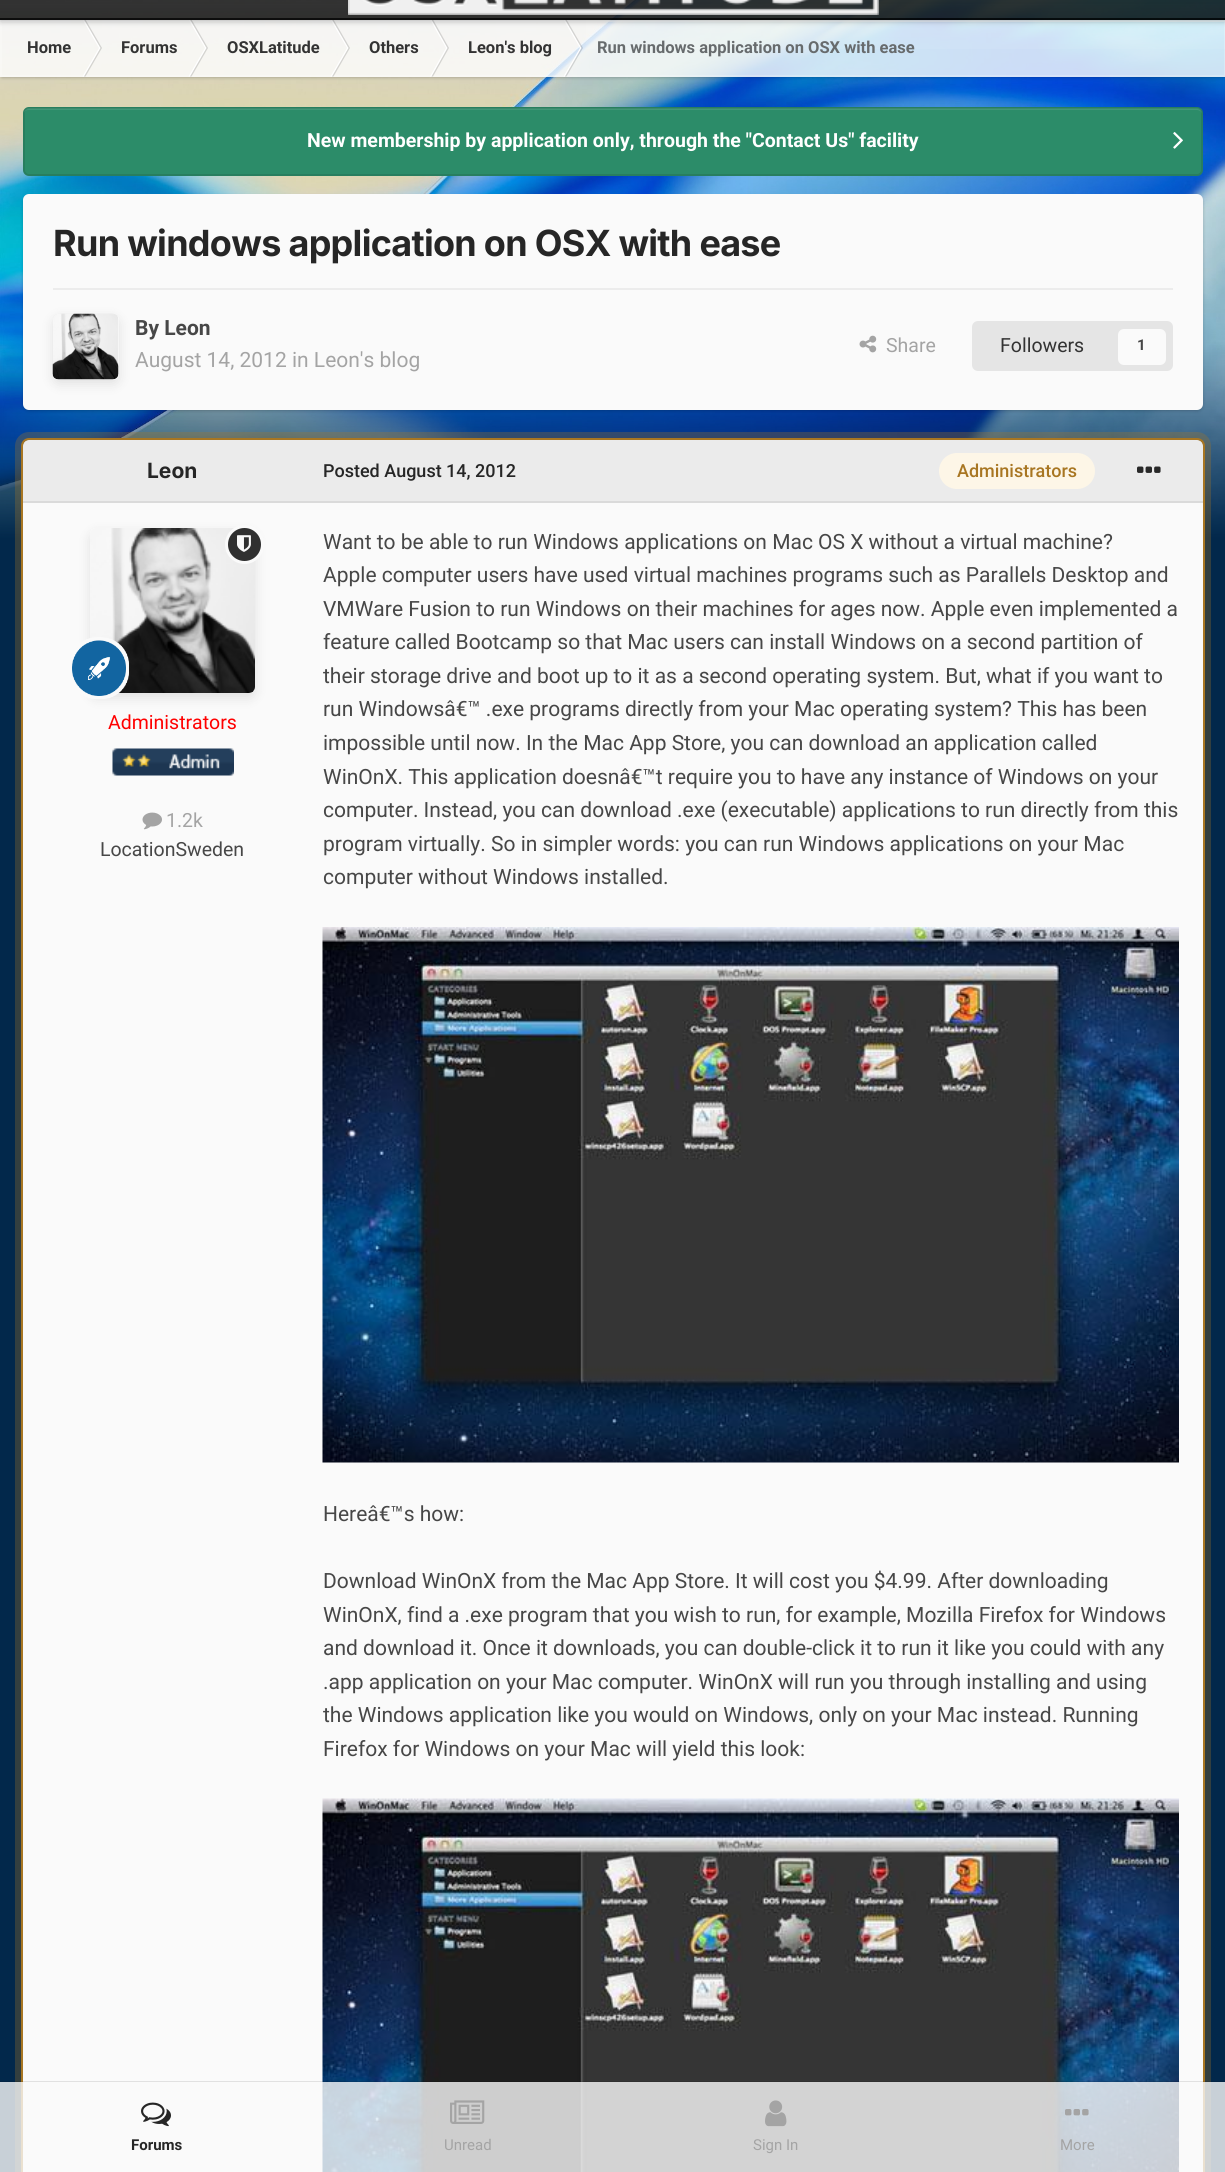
import math
import cairo

surface = cairo.ImageSurface(cairo.FORMAT_RGB24, 1225, 2172)
ctx = cairo.Context(surface)
options = cairo.FontOptions()
options.set_hint_metrics(cairo.HINT_METRICS_OFF)
options.set_hint_style(cairo.HINT_STYLE_NONE)
ctx.set_font_options(options)
ctx.set_miter_limit(4)


def spaced_text(x, y, s, letter, word):
    ctx.move_to(x, y)
    for ch in s:
        ctx.show_text(ch)
        ctx.rel_move_to(letter + word * (ch == ' '), 0)


def round_rect(x, y, w, h, r):
    ctx.new_sub_path()
    for i, (u, v) in enumerate([(x + w - r, y + h - r), (x + r, y + h - r), (x + r, y + r), (x + w - r, y + r)]):
        ctx.arc(u, v, r, i * math.pi / 2, (i + 1) * math.pi / 2)
    ctx.close_path()


def shadow(x, y, w, h, r, blur, alpha):
    ctx.push_group_with_content(cairo.CONTENT_ALPHA)
    ctx.set_operator(cairo.OPERATOR_SOURCE)
    for i in range(15, -16, -2):
        e = blur * i / 6
        if min(w, h) + 2 * e > 0:
            ctx.set_source_rgba(0, 0, 0, alpha * math.erfc((i - 1) / 8.5) / 2)
            round_rect(x - e, y - e, w + 2 * e, h + 2 * e, max(0, min(r + e + blur * .6, min(w, h) / 2 + e)))
            ctx.fill()
    ctx.mask(ctx.pop_group())


def picture(path, x, y, w, h):
    ctx.save()
    ctx.set_source_surface(cairo.ImageSurface.create_from_png(path), x, y)
    ctx.rectangle(x, y, w, h)
    ctx.fill()
    ctx.restore()


ctx.set_source_rgb(0.008, 0.157, 0.294)
ctx.paint()
picture("img1.png", 0, 0, 1225, 549)
ctx.save()
ctx.set_fill_rule(cairo.FILL_RULE_EVEN_ODD)
ctx.new_path()
ctx.move_to(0, 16)
ctx.line_to(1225, 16)
ctx.line_to(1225, 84)
ctx.line_to(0, 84)
ctx.close_path()
ctx.move_to(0, 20)
ctx.line_to(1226, 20)
ctx.line_to(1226, 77)
ctx.line_to(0, 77)
ctx.close_path()
ctx.clip()
ctx.set_source_rgb(0, 0, 0)
shadow(2, 23, 1222, 54, 0, 2, 0.3)
ctx.restore()
ctx.set_source_rgba(1, 1, 1, 0.8)
ctx.rectangle(0, 20, 1225, 57)
ctx.fill()
gradient = cairo.LinearGradient(613, 19, 613, 77)
gradient.add_color_stop_rgba(0, 1, 1, 1, 0.1)
gradient.add_color_stop_rgba(1, 1, 1, 1, 0)
ctx.set_source(gradient)
ctx.rectangle(586, 20, 639, 29)
ctx.fill()
ctx.rectangle(1, 21, 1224, 55)
ctx.set_source_rgba(1, 1, 1, 0.2)
ctx.stroke()
ctx.set_source_rgba(1, 1, 1, 0.4)
ctx.rectangle(0, 20, 1225, 2)
ctx.fill()
ctx.save()
ctx.rectangle(0, 20, 1193, 57)
ctx.clip()
ctx.set_source_rgb(1, 1, 1)
ctx.new_path()
ctx.move_to(82.5, 19.5)
ctx.line_to(84, 19.5)
ctx.line_to(100.5, 48)
ctx.line_to(99, 48)
ctx.close_path()
ctx.fill()
ctx.restore()
ctx.set_source_rgba(0.278, 0.278, 0.278, 0.2)
ctx.new_path()
ctx.move_to(84, 19.5)
ctx.line_to(85.5, 19.5)
ctx.line_to(102, 48)
ctx.line_to(100.5, 48)
ctx.close_path()
ctx.fill()
ctx.save()
ctx.rectangle(0, 20, 1193, 57)
ctx.clip()
ctx.set_source_rgb(1, 1, 1)
ctx.new_path()
ctx.move_to(188.5, 19.5)
ctx.line_to(190, 19.5)
ctx.line_to(206.5, 48)
ctx.line_to(205, 48)
ctx.close_path()
ctx.fill()
ctx.restore()
ctx.new_path()
ctx.move_to(190, 19.5)
ctx.line_to(191.5, 19.5)
ctx.line_to(208, 48)
ctx.line_to(206.5, 48)
ctx.close_path()
ctx.fill()
ctx.save()
ctx.rectangle(0, 20, 1193, 57)
ctx.clip()
ctx.set_source_rgb(1, 1, 1)
ctx.new_path()
ctx.move_to(330.5, 19.5)
ctx.line_to(332, 19.5)
ctx.line_to(348.5, 48)
ctx.line_to(347, 48)
ctx.close_path()
ctx.fill()
ctx.restore()
ctx.new_path()
ctx.move_to(332, 19.5)
ctx.line_to(333.5, 19.5)
ctx.line_to(350, 48)
ctx.line_to(348.5, 48)
ctx.close_path()
ctx.fill()
ctx.set_source_rgb(1, 1, 1)
ctx.new_path()
ctx.move_to(430, 19.5)
ctx.line_to(431.5, 19.5)
ctx.line_to(447.5, 48)
ctx.line_to(446, 48)
ctx.close_path()
ctx.fill()
ctx.set_source_rgba(0.278, 0.278, 0.278, 0.2)
ctx.new_path()
ctx.move_to(431.5, 19.5)
ctx.line_to(433, 19.5)
ctx.line_to(449, 48)
ctx.line_to(447.5, 48)
ctx.close_path()
ctx.fill()
ctx.save()
ctx.rectangle(0, 20, 1193, 57)
ctx.clip()
ctx.set_source_rgb(1, 1, 1)
ctx.new_path()
ctx.move_to(563.5, 19.5)
ctx.line_to(565, 19.5)
ctx.line_to(581.5, 48)
ctx.line_to(580, 48)
ctx.close_path()
ctx.fill()
ctx.restore()
ctx.new_path()
ctx.move_to(565, 19.5)
ctx.line_to(566.5, 19.5)
ctx.line_to(583, 48)
ctx.line_to(581.5, 48)
ctx.close_path()
ctx.fill()
ctx.save()
ctx.set_fill_rule(cairo.FILL_RULE_EVEN_ODD)
ctx.new_path()
ctx.move_to(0, 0)
ctx.line_to(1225, 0)
ctx.line_to(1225, 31)
ctx.line_to(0, 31)
ctx.close_path()
ctx.move_to(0, -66)
ctx.line_to(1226, -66)
ctx.line_to(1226, 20)
ctx.line_to(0, 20)
ctx.close_path()
ctx.clip()
ctx.set_source_rgb(0, 0, 0)
shadow(0, -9, 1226, 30, 0, 3, 0.3)
ctx.restore()
gradient = cairo.LinearGradient(613, 18, 613, 101)
gradient.add_color_stop_rgba(0, 0.118, 0.118, 0.118, 0.8)
gradient.add_color_stop_rgba(1, 0.118, 0.118, 0.118, 0.9)
ctx.set_source(gradient)
ctx.rectangle(0, 18, 1225, 2)
ctx.fill()
ctx.set_source_rgba(0, 0, 0, 0.8)
ctx.rectangle(0, 18, 1225, 2)
ctx.fill()
picture("img2.png", 348, 0, 531, 15)
ctx.select_font_face("Roboto", cairo.FONT_SLANT_NORMAL, cairo.FONT_WEIGHT_BOLD)
ctx.set_font_size(16.5)
ctx.set_source_rgb(0.2, 0.2, 0.2)
ctx.move_to(27, 53)
ctx.show_text("Home")
ctx.set_source_rgb(1, 1, 1)
ctx.new_path()
ctx.move_to(82.5, 76.5)
ctx.line_to(84, 76.5)
ctx.line_to(100.5, 48)
ctx.line_to(99, 48)
ctx.close_path()
ctx.fill()
ctx.set_source_rgba(0.278, 0.278, 0.278, 0.2)
ctx.new_path()
ctx.move_to(84, 76.5)
ctx.line_to(85.5, 76.5)
ctx.line_to(102, 48)
ctx.line_to(100.5, 48)
ctx.close_path()
ctx.fill()
ctx.set_source_rgb(0.2, 0.2, 0.2)
ctx.move_to(121, 53)
ctx.show_text("Forums")
ctx.set_source_rgb(1, 1, 1)
ctx.new_path()
ctx.move_to(188.5, 76.5)
ctx.line_to(190, 76.5)
ctx.line_to(206.5, 48)
ctx.line_to(205, 48)
ctx.close_path()
ctx.fill()
ctx.set_source_rgba(0.278, 0.278, 0.278, 0.2)
ctx.new_path()
ctx.move_to(190, 76.5)
ctx.line_to(191.5, 76.5)
ctx.line_to(208, 48)
ctx.line_to(206.5, 48)
ctx.close_path()
ctx.fill()
ctx.set_source_rgb(0.2, 0.2, 0.2)
ctx.move_to(227, 53)
ctx.show_text("OSXLatitude")
ctx.set_source_rgb(1, 1, 1)
ctx.new_path()
ctx.move_to(330.5, 76.5)
ctx.line_to(332, 76.5)
ctx.line_to(348.5, 48)
ctx.line_to(347, 48)
ctx.close_path()
ctx.fill()
ctx.set_source_rgba(0.278, 0.278, 0.278, 0.2)
ctx.new_path()
ctx.move_to(332, 76.5)
ctx.line_to(333.5, 76.5)
ctx.line_to(350, 48)
ctx.line_to(348.5, 48)
ctx.close_path()
ctx.fill()
ctx.set_source_rgb(0.2, 0.2, 0.2)
ctx.move_to(369, 53)
ctx.show_text("Others")
ctx.set_source_rgb(1, 1, 1)
ctx.new_path()
ctx.move_to(430, 76.5)
ctx.line_to(431.5, 76.5)
ctx.line_to(447.5, 48)
ctx.line_to(446, 48)
ctx.close_path()
ctx.fill()
ctx.set_source_rgba(0.278, 0.278, 0.278, 0.2)
ctx.new_path()
ctx.move_to(431.5, 76.5)
ctx.line_to(433, 76.5)
ctx.line_to(449, 48)
ctx.line_to(447.5, 48)
ctx.close_path()
ctx.fill()
ctx.set_source_rgb(0.2, 0.2, 0.2)
ctx.move_to(468, 53)
ctx.show_text("Leon's blog")
ctx.set_source_rgb(1, 1, 1)
ctx.new_path()
ctx.move_to(563.5, 76.5)
ctx.line_to(565, 76.5)
ctx.line_to(581.5, 48)
ctx.line_to(580, 48)
ctx.close_path()
ctx.fill()
ctx.set_source_rgba(0.278, 0.278, 0.278, 0.2)
ctx.new_path()
ctx.move_to(565, 76.5)
ctx.line_to(566.5, 76.5)
ctx.line_to(583, 48)
ctx.line_to(581.5, 48)
ctx.close_path()
ctx.fill()
ctx.set_source_rgb(0.404, 0.42, 0.427)
ctx.move_to(597, 53)
ctx.show_text("Run windows application on OSX with ease")
ctx.set_source_rgb(0.173, 0.549, 0.412)
round_rect(23, 107, 1180, 69, 6)
ctx.fill()
ctx.set_source_rgb(0.255, 0.596, 0.471)
ctx.new_path()
ctx.move_to(28, 110)
ctx.line_to(1197, 110)
ctx.curve_to(1199, 110, 1202, 112, 1202, 114)
ctx.curve_to(1202, 111, 1200, 108, 1197, 108)
ctx.line_to(29, 108)
ctx.curve_to(26, 108, 24, 111, 24, 114)
ctx.curve_to(24, 112, 26, 110, 28, 110)
ctx.close_path()
ctx.fill()
round_rect(24, 108, 1178, 67, 5)
ctx.set_source_rgba(0, 0, 0, 0.1)
ctx.stroke()
ctx.set_font_size(19.5)
ctx.set_source_rgb(1, 1, 1)
ctx.move_to(307, 147)
ctx.show_text("New membership by application only, through the \"Contact Us\" facility")
picture("img3.png", 1173, 132, 10, 17)
ctx.set_source_rgb(0, 0, 0)
shadow(24, 197, 1178, 213, 5, 2, 0.3)
ctx.set_source_rgb(0.98, 0.98, 0.98)
round_rect(23, 194, 1180, 216, 6)
ctx.fill()
ctx.select_font_face("Inter", cairo.FONT_SLANT_NORMAL, cairo.FONT_WEIGHT_BOLD)
ctx.set_font_size(36)
ctx.set_source_rgb(0.149, 0.149, 0.149)
spaced_text(53, 256, "Run windows application on OSX with ease", -0.7, 0)
ctx.set_source_rgb(0.925, 0.925, 0.925)
ctx.rectangle(53, 288, 1120, 2)
ctx.fill()
picture("img4.png", 52, 313, 67, 67)
ctx.save()
ctx.set_fill_rule(cairo.FILL_RULE_EVEN_ODD)
ctx.new_path()
ctx.move_to(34, 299)
ctx.line_to(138, 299)
ctx.line_to(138, 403)
ctx.line_to(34, 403)
ctx.close_path()
ctx.move_to(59, 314)
ctx.line_to(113, 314)
ctx.curve_to(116.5, 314, 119, 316.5, 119, 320)
ctx.line_to(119, 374)
ctx.curve_to(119, 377.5, 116.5, 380, 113, 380)
ctx.line_to(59, 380)
ctx.curve_to(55.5, 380, 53, 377.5, 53, 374)
ctx.line_to(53, 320)
ctx.curve_to(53, 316.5, 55.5, 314, 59, 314)
ctx.close_path()
ctx.clip()
ctx.set_source_rgb(0, 0, 0)
shadow(53, 318, 66, 66, 6, 6, 0.1)
ctx.restore()
ctx.select_font_face("Roboto", cairo.FONT_SLANT_NORMAL, cairo.FONT_WEIGHT_BOLD)
ctx.set_font_size(21)
ctx.set_source_rgb(0.278, 0.278, 0.278)
ctx.move_to(135, 335)
ctx.show_text("By Leon")
ctx.select_font_face("Roboto")
ctx.set_source_rgb(0.643, 0.643, 0.643)
ctx.move_to(135, 367)
ctx.show_text("August 14, 2012 in Leon's blog")
picture("img5.png", 859, 335, 18, 18)
ctx.set_font_size(19.5)
ctx.move_to(886, 352)
ctx.show_text("Share")
ctx.set_source_rgb(0.898, 0.898, 0.898)
round_rect(972, 321, 201, 50, 6)
ctx.fill()
ctx.set_source_rgb(0.2, 0.2, 0.2)
ctx.move_to(1000, 352)
ctx.show_text("Followers")
ctx.set_source_rgb(0.98, 0.98, 0.98)
round_rect(1118, 329, 48, 36, 6)
ctx.fill()
ctx.select_font_face("Roboto", cairo.FONT_SLANT_NORMAL, cairo.FONT_WEIGHT_BOLD)
ctx.set_font_size(15)
ctx.set_source_rgb(0.278, 0.278, 0.278)
ctx.move_to(1137, 350)
ctx.show_text("1")
ctx.set_source_rgb(0.98, 0.98, 0.98)
round_rect(23, 440, 1180, 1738, 6)
ctx.fill()
ctx.set_source_rgb(0.918, 0.918, 0.918)
ctx.new_path()
ctx.move_to(29, 440)
ctx.line_to(1197, 440)
ctx.curve_to(1200.5, 440, 1203, 442.5, 1203, 446)
ctx.line_to(1203, 503)
ctx.line_to(23, 503)
ctx.line_to(23, 446)
ctx.curve_to(23, 442.5, 25.5, 440, 29, 440)
ctx.close_path()
ctx.fill()
ctx.set_source_rgb(0.855, 0.855, 0.855)
ctx.rectangle(23, 501, 1180, 2)
ctx.fill()
picture("img6.png", 90, 528, 165, 165)
ctx.save()
ctx.set_fill_rule(cairo.FILL_RULE_EVEN_ODD)
ctx.new_path()
ctx.move_to(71, 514)
ctx.line_to(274, 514)
ctx.line_to(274, 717)
ctx.line_to(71, 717)
ctx.close_path()
ctx.move_to(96, 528)
ctx.line_to(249, 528)
ctx.curve_to(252.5, 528, 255, 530.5, 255, 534)
ctx.line_to(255, 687)
ctx.curve_to(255, 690.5, 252.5, 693, 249, 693)
ctx.line_to(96, 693)
ctx.curve_to(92.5, 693, 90, 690.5, 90, 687)
ctx.line_to(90, 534)
ctx.curve_to(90, 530.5, 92.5, 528, 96, 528)
ctx.close_path()
ctx.clip()
ctx.set_source_rgb(0, 0, 0)
shadow(90, 533, 165, 165, 6, 6, 0.1)
ctx.restore()
ctx.set_source_rgb(0.188, 0.188, 0.188)
ctx.arc(244.5, 544.5, 18, 0, 2 * math.pi)
ctx.fill_preserve()
ctx.set_source_rgb(0.98, 0.98, 0.98)
ctx.set_line_width(3)
ctx.stroke()
picture("img7.png", 237, 535, 14, 17)
picture("img8.png", 72, 637, 57, 62)
picture("img9.png", 112, 748, 122, 28)
picture("img10.png", 142, 812, 20, 18)
picture("img12.png", 322, 927, 857, 536)
picture("img13.png", 322, 1798, 857, 374)
round_rect(19, 436, 1188, 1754, 10)
ctx.set_source_rgba(0.659, 0.463, 0.133, 0.3)
ctx.set_line_width(8)
ctx.stroke()
round_rect(22, 439, 1182, 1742, 7)
ctx.set_source_rgb(0.659, 0.463, 0.133)
ctx.set_line_width(2)
ctx.stroke()
ctx.select_font_face("Inter", cairo.FONT_SLANT_NORMAL, cairo.FONT_WEIGHT_BOLD)
ctx.set_font_size(21)
ctx.set_source_rgb(0.149, 0.149, 0.149)
ctx.move_to(147, 478)
ctx.show_text("Leon")
ctx.select_font_face("Roboto")
ctx.set_font_size(19.5)
ctx.set_source_rgb(1, 0, 0)
ctx.move_to(108, 729)
ctx.show_text("Administrators")
ctx.set_source_rgb(0.643, 0.643, 0.643)
ctx.move_to(166, 827)
ctx.show_text("1.2k")
ctx.set_source_rgb(0.278, 0.278, 0.278)
ctx.move_to(100, 856)
ctx.show_text("LocationSweden")
ctx.select_font_face("Roboto Medium")
ctx.set_font_size(18)
ctx.set_source_rgb(0.149, 0.149, 0.149)
ctx.move_to(323, 477)
ctx.show_text("Posted August 14, 2012")
ctx.set_source_rgb(0.992, 0.961, 0.906)
round_rect(939, 453, 156, 36, 18)
ctx.fill()
ctx.set_source_rgb(0.659, 0.463, 0.133)
ctx.move_to(957, 477)
ctx.show_text("Administrators")
picture("img11.png", 1137, 466, 24, 7)
ctx.select_font_face("Roboto")
ctx.set_font_size(21)
ctx.set_source_rgb(0.278, 0.278, 0.278)
ctx.move_to(323, 549)
ctx.show_text("Want to be able to run Windows applications on Mac OS X without a virtual machine?")
ctx.move_to(323, 582)
ctx.show_text("Apple computer users have used virtual machines programs such as Parallels Desktop and")
ctx.move_to(323, 616)
ctx.show_text("VMWare Fusion to run Windows on their machines for ages now. Apple even implemented a")
ctx.move_to(323, 649)
ctx.show_text("feature called Bootcamp so that Mac users can install Windows on a second partition of")
ctx.move_to(323, 683)
ctx.show_text("their storage drive and boot up to it as a second operating system. But, what if you want to")
ctx.move_to(323, 716)
ctx.show_text("run Windowsâ€™ .exe programs directly from your Mac operating system? This has been")
ctx.move_to(323, 750)
ctx.show_text("impossible until now. In the Mac App Store, you can download an application called")
ctx.move_to(323, 784)
ctx.show_text("WinOnX. This application doesnâ€™t require you to have any instance of Windows on your")
ctx.move_to(323, 817)
ctx.show_text("computer. Instead, you can download .exe (executable) applications to run directly from this")
ctx.move_to(323, 851)
ctx.show_text("program virtually. So in simpler words: you can run Windows applications on your Mac")
ctx.move_to(323, 884)
ctx.show_text("computer without Windows installed.")
ctx.move_to(323, 1521)
ctx.show_text("Hereâ€™s how:")
ctx.move_to(323, 1588)
ctx.show_text("Download WinOnX from the Mac App Store. It will cost you $4.99. After downloading")
ctx.move_to(323, 1622)
ctx.show_text("WinOnX, find a .exe program that you wish to run, for example, Mozilla Firefox for Windows")
ctx.move_to(323, 1655)
ctx.show_text("and download it. Once it downloads, you can double-click it to run it like you could with any")
ctx.move_to(323, 1689)
ctx.show_text(".app application on your Mac computer. WinOnX will run you through installing and using")
ctx.move_to(323, 1722)
ctx.show_text("the Windows application like you would on Windows, only on your Mac instead. Running")
ctx.move_to(323, 1756)
ctx.show_text("Firefox for Windows on your Mac will yield this look:")
ctx.set_source_rgba(0, 0, 0, 0.1)
ctx.new_path()
ctx.move_to(0, 2081)
ctx.line_to(0, 2082)
ctx.line_to(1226, 2082)
ctx.line_to(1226, 2171)
ctx.line_to(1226, 2081)
ctx.close_path()
ctx.fill()
ctx.set_source_rgba(0.98, 0.98, 0.98, 0.8)
ctx.rectangle(0, 2082, 1225, 90)
ctx.fill()
picture("img14.png", 141, 2102, 30, 25)
ctx.select_font_face("Roboto", cairo.FONT_SLANT_NORMAL, cairo.FONT_WEIGHT_BOLD)
ctx.set_font_size(15)
ctx.set_source_rgb(0.149, 0.149, 0.149)
ctx.move_to(131, 2150)
ctx.show_text("Forums")
picture("img15.png", 450, 2100, 35, 24)
ctx.select_font_face("Roboto")
ctx.set_source_rgb(0.643, 0.643, 0.643)
ctx.move_to(444, 2150)
ctx.show_text("Unread")
picture("img16.png", 765, 2100, 22, 27)
ctx.move_to(753, 2150)
ctx.show_text("Sign In")
picture("img17.png", 1065, 2109, 24, 7)
ctx.move_to(1060, 2150)
ctx.show_text("More")
surface.write_to_png("page.png")
